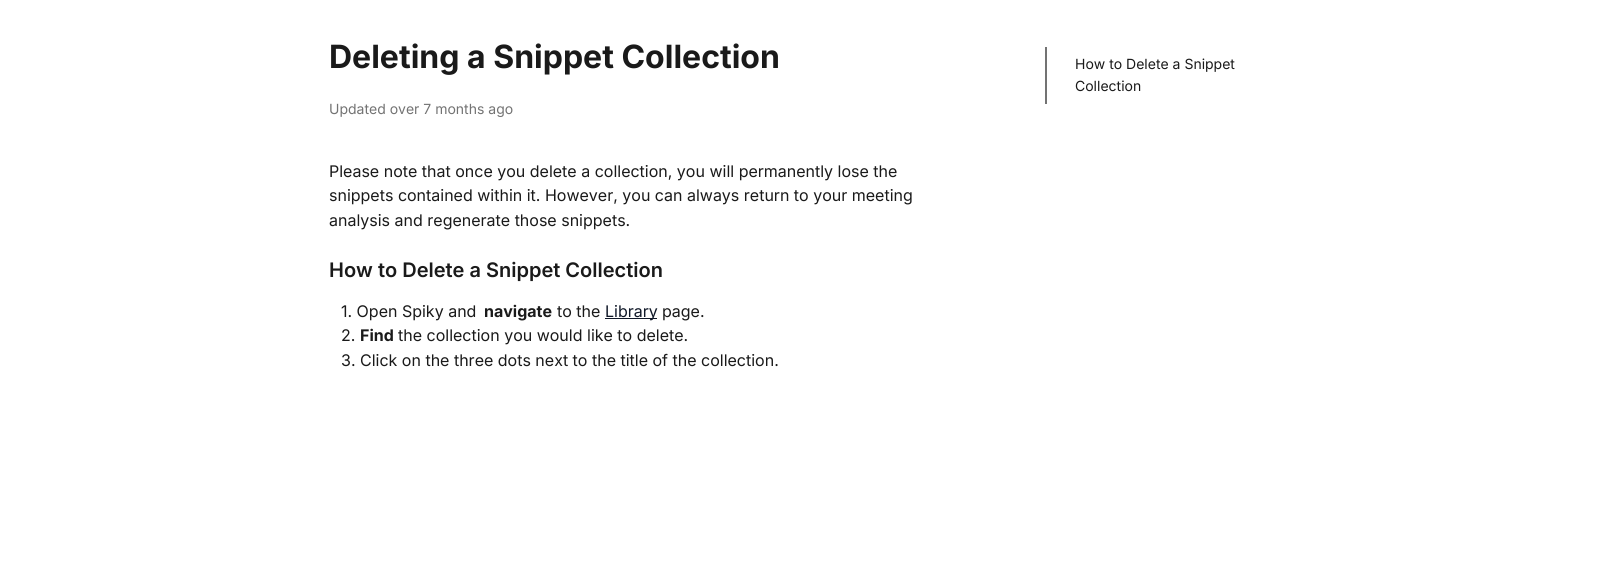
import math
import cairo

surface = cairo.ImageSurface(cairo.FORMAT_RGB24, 1618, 585)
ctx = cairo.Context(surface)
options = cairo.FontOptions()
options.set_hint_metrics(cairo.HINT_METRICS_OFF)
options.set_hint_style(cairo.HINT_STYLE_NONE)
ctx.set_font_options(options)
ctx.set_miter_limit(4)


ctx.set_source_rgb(1, 1, 1)
ctx.paint()
ctx.select_font_face("Inter", cairo.FONT_SLANT_NORMAL, cairo.FONT_WEIGHT_BOLD)
ctx.set_font_size(32)
ctx.set_source_rgb(0.102, 0.102, 0.102)
ctx.move_to(329, 68)
ctx.show_text("Deleting a Snippet Collection")
ctx.select_font_face("Inter")
ctx.set_font_size(14)
ctx.set_source_rgb(0.451, 0.451, 0.451)
ctx.move_to(329, 114)
ctx.show_text("Updated over 7 months ago")
ctx.set_font_size(16)
ctx.set_source_rgb(0.102, 0.102, 0.102)
ctx.move_to(329, 177)
ctx.show_text("Please note that once you delete a collection, you will permanently lose the")
ctx.move_to(329, 201)
ctx.show_text("snippets contained within it. However, you can always return to your meeting")
ctx.move_to(329, 226)
ctx.show_text("analysis and regenerate those snippets.")
ctx.select_font_face("Inter SemiBold")
ctx.set_font_size(20)
ctx.move_to(329, 277)
ctx.show_text("How to Delete a Snippet Collection")
ctx.select_font_face("Inter")
ctx.set_font_size(16)
ctx.move_to(341, 317)
ctx.show_text("1. Open Spiky and")
ctx.select_font_face("Inter", cairo.FONT_SLANT_NORMAL, cairo.FONT_WEIGHT_BOLD)
ctx.move_to(484, 317)
ctx.show_text("navigate")
ctx.select_font_face("Inter")
ctx.move_to(557, 317)
ctx.show_text("to the")
ctx.set_source_rgb(0.063, 0.094, 0.157)
ctx.rectangle(605, 318, 52, 1)
ctx.fill()
ctx.move_to(605, 317)
ctx.show_text("Library")
ctx.set_source_rgb(0.102, 0.102, 0.102)
ctx.move_to(662, 317)
ctx.show_text("page.")
ctx.move_to(341, 341)
ctx.show_text("2.")
ctx.select_font_face("Inter", cairo.FONT_SLANT_NORMAL, cairo.FONT_WEIGHT_BOLD)
ctx.move_to(360, 341)
ctx.show_text("Find")
ctx.select_font_face("Inter")
ctx.move_to(398, 341)
ctx.show_text("the collection you would like to delete.")
ctx.move_to(341, 366)
ctx.show_text("3. Click on the three dots next to the title of the collection.")
ctx.set_source_rgb(0.451, 0.451, 0.451)
ctx.rectangle(1045, 47, 2, 57)
ctx.fill()
ctx.set_font_size(14)
ctx.set_source_rgb(0.102, 0.102, 0.102)
ctx.move_to(1075, 69)
ctx.show_text("How to Delete a Snippet")
ctx.move_to(1075, 91)
ctx.show_text("Collection")
surface.write_to_png("page.png")
